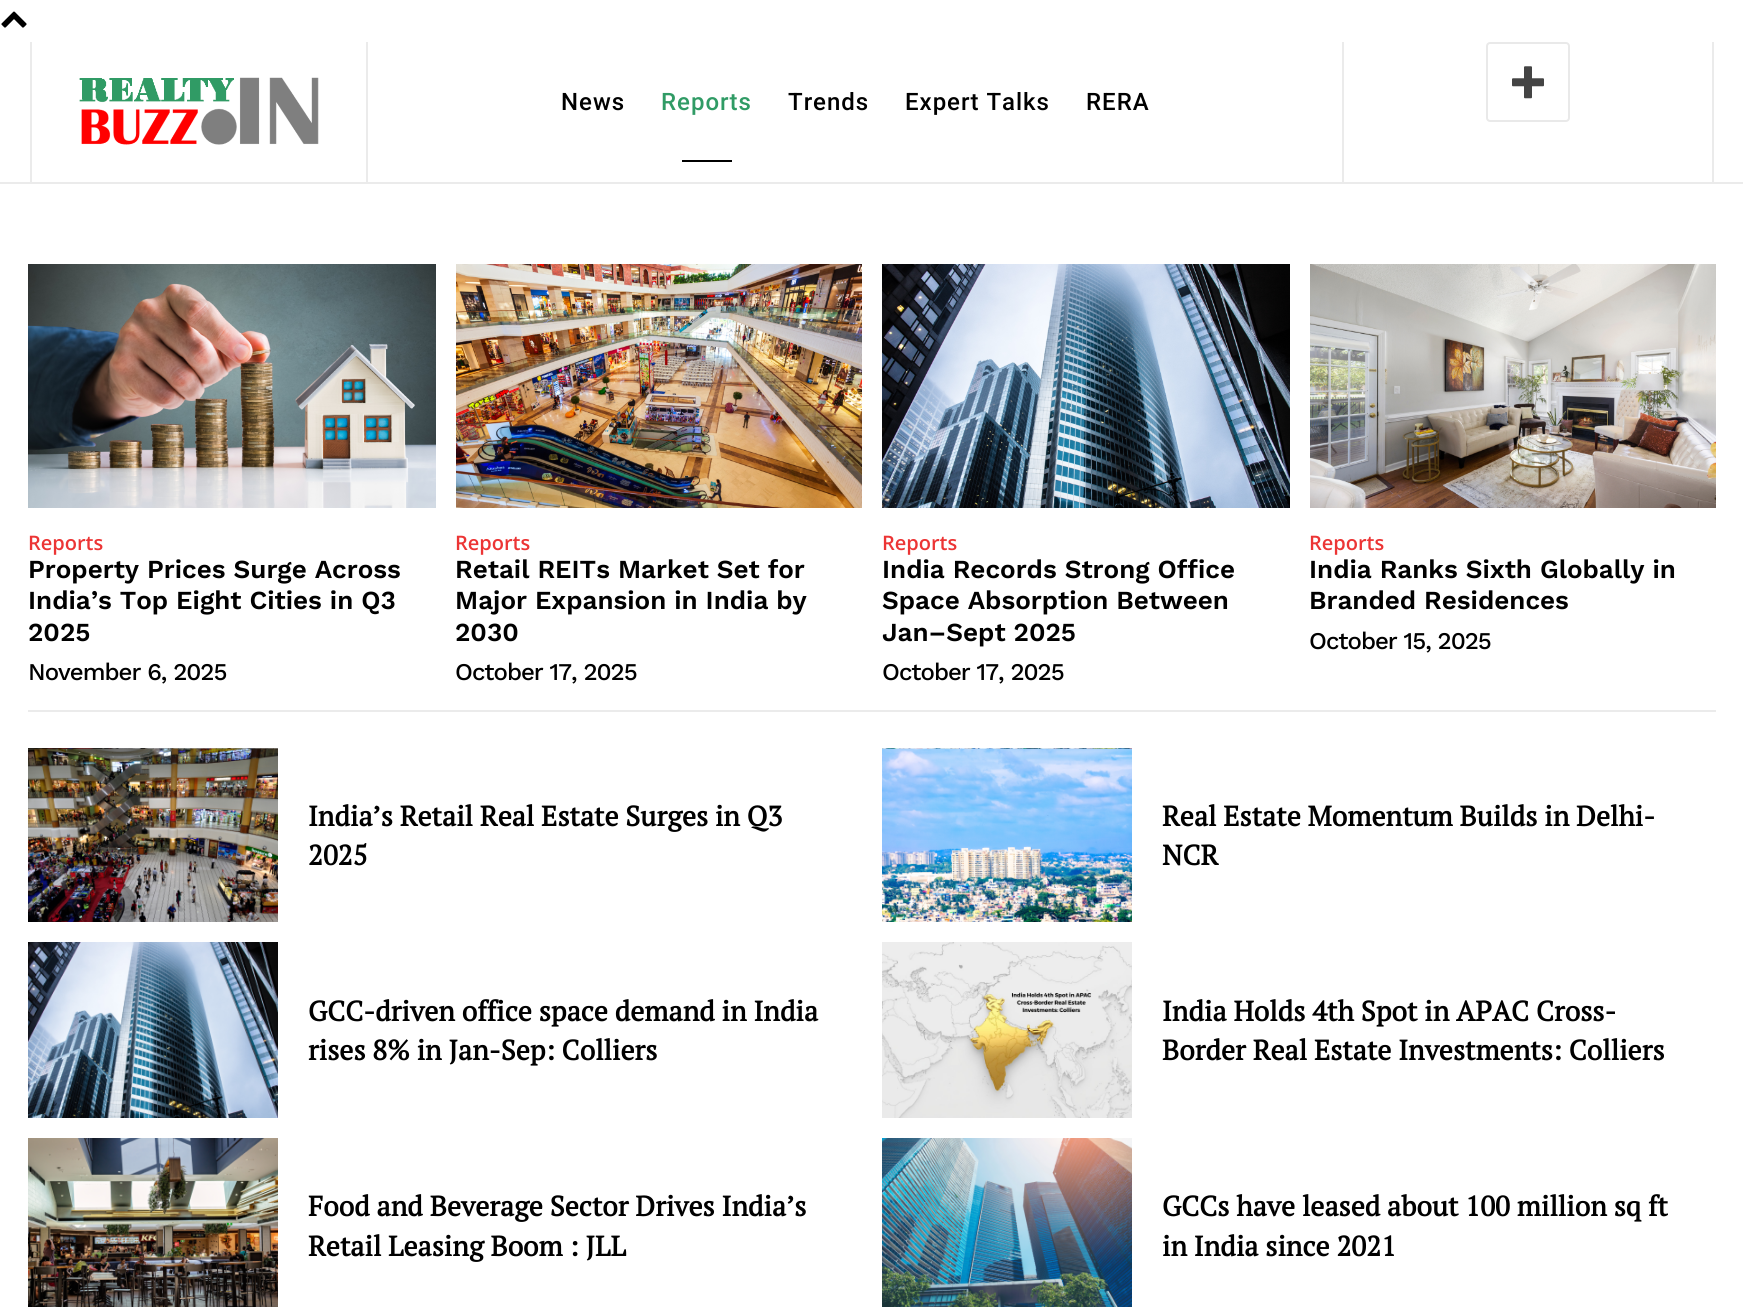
import math
import cairo

surface = cairo.ImageSurface(cairo.FORMAT_RGB24, 1743, 1307)
ctx = cairo.Context(surface)
options = cairo.FontOptions()
options.set_hint_metrics(cairo.HINT_METRICS_OFF)
options.set_hint_style(cairo.HINT_STYLE_NONE)
ctx.set_font_options(options)
ctx.set_miter_limit(4)


def spaced_text(x, y, s, letter, word):
    ctx.move_to(x, y)
    for ch in s:
        ctx.show_text(ch)
        ctx.rel_move_to(letter + word * (ch == ' '), 0)


def round_rect(x, y, w, h, r):
    ctx.new_sub_path()
    for i, (u, v) in enumerate([(x + w - r, y + h - r), (x + r, y + h - r), (x + r, y + r), (x + w - r, y + r)]):
        ctx.arc(u, v, r, i * math.pi / 2, (i + 1) * math.pi / 2)
    ctx.close_path()


def picture(path, x, y, w, h):
    ctx.save()
    ctx.set_source_surface(cairo.ImageSurface.create_from_png(path), x, y)
    ctx.rectangle(x, y, w, h)
    ctx.fill()
    ctx.restore()


ctx.set_source_rgb(1, 1, 1)
ctx.paint()
picture("img1.png", 1, 11, 26, 17)
ctx.set_source_rgb(0.918, 0.918, 0.918)
ctx.rectangle(0, 182, 1743, 2)
ctx.fill()
ctx.rectangle(30, 42, 2, 140)
ctx.fill()
picture("img2.png", 79, 77, 240, 68)
ctx.rectangle(1342, 42, 2, 140)
ctx.fill()
ctx.rectangle(366, 42, 2, 140)
ctx.fill()
ctx.select_font_face("Roboto Medium")
ctx.set_font_size(24)
ctx.set_source_rgb(0, 0, 0)
spaced_text(561, 110, "News", 1, 0)
ctx.set_source_rgb(0.188, 0.608, 0.396)
spaced_text(661, 110, "Reports", 1, 0)
ctx.set_source_rgb(0, 0, 0)
ctx.rectangle(682, 160, 50, 2)
ctx.fill()
spaced_text(788, 110, "Trends", 1, 0)
spaced_text(905, 110, "Expert Talks", 1, 0)
spaced_text(1086, 110, "RERA", 1, 0)
ctx.set_source_rgb(0.918, 0.918, 0.918)
ctx.rectangle(1712, 42, 2, 140)
ctx.fill()
round_rect(1487, 43, 82, 78, 3)
ctx.set_source_rgb(0.914, 0.914, 0.914)
ctx.stroke()
picture("img3.png", 1512, 66, 32, 33)
ctx.set_source_rgb(0.918, 0.918, 0.918)
ctx.rectangle(28, 710, 1688, 2)
ctx.fill()
picture("img4.png", 28, 264, 408, 244)
ctx.select_font_face("Open Sans SemiBold")
ctx.set_font_size(20)
ctx.set_source_rgb(0.925, 0.208, 0.208)
ctx.move_to(28, 550)
ctx.show_text("Reports")
ctx.select_font_face("Work Sans SemiBold")
ctx.set_font_size(26)
ctx.set_source_rgb(0, 0, 0)
ctx.move_to(28, 578)
ctx.show_text("Property Prices Surge Across")
ctx.move_to(28, 609)
ctx.show_text("India’s Top Eight Cities in Q3")
ctx.move_to(28, 641)
ctx.show_text("2025")
ctx.select_font_face("Work Sans Medium")
ctx.set_font_size(24)
spaced_text(28, 680, "November 6, 2025", -1, 0)
picture("img5.png", 456, 264, 406, 244)
ctx.select_font_face("Open Sans SemiBold")
ctx.set_font_size(20)
ctx.set_source_rgb(0.925, 0.208, 0.208)
ctx.move_to(455, 550)
ctx.show_text("Reports")
ctx.select_font_face("Work Sans SemiBold")
ctx.set_font_size(26)
ctx.set_source_rgb(0, 0, 0)
ctx.move_to(455, 578)
ctx.show_text("Retail REITs Market Set for")
ctx.move_to(455, 609)
ctx.show_text("Major Expansion in India by")
ctx.move_to(455, 641)
ctx.show_text("2030")
ctx.select_font_face("Work Sans Medium")
ctx.set_font_size(24)
spaced_text(455, 680, "October 17, 2025", -1, 0)
picture("img6.png", 882, 264, 408, 244)
ctx.select_font_face("Open Sans SemiBold")
ctx.set_font_size(20)
ctx.set_source_rgb(0.925, 0.208, 0.208)
ctx.move_to(882, 550)
ctx.show_text("Reports")
ctx.select_font_face("Work Sans SemiBold")
ctx.set_font_size(26)
ctx.set_source_rgb(0, 0, 0)
ctx.move_to(882, 578)
ctx.show_text("India Records Strong Office")
ctx.move_to(882, 609)
ctx.show_text("Space Absorption Between")
ctx.move_to(882, 641)
ctx.show_text("Jan–Sept 2025")
ctx.select_font_face("Work Sans Medium")
ctx.set_font_size(24)
spaced_text(882, 680, "October 17, 2025", -1, 0)
picture("img7.png", 1310, 264, 406, 244)
ctx.select_font_face("Open Sans SemiBold")
ctx.set_font_size(20)
ctx.set_source_rgb(0.925, 0.208, 0.208)
ctx.move_to(1309, 550)
ctx.show_text("Reports")
ctx.select_font_face("Work Sans SemiBold")
ctx.set_font_size(26)
ctx.set_source_rgb(0, 0, 0)
ctx.move_to(1309, 578)
ctx.show_text("India Ranks Sixth Globally in")
ctx.move_to(1309, 609)
ctx.show_text("Branded Residences")
ctx.select_font_face("Work Sans Medium")
ctx.set_font_size(24)
spaced_text(1309, 649, "October 15, 2025", -1, 0)
picture("img8.png", 28, 748, 250, 174)
ctx.select_font_face("PT Serif", cairo.FONT_SLANT_NORMAL, cairo.FONT_WEIGHT_BOLD)
ctx.set_font_size(28)
ctx.move_to(308, 826)
ctx.show_text("India’s Retail Real Estate Surges in Q3")
ctx.move_to(308, 865)
ctx.show_text("2025")
picture("img9.png", 882, 748, 250, 174)
ctx.move_to(1162, 826)
ctx.show_text("Real Estate Momentum Builds in Delhi-")
ctx.move_to(1162, 865)
ctx.show_text("NCR")
picture("img10.png", 28, 942, 250, 176)
ctx.move_to(308, 1021)
ctx.show_text("GCC-driven office space demand in India")
ctx.move_to(308, 1060)
ctx.show_text("rises 8% in Jan-Sep: Colliers")
picture("img11.png", 882, 942, 250, 176)
ctx.move_to(1162, 1021)
ctx.show_text("India Holds 4th Spot in APAC Cross-")
ctx.move_to(1162, 1060)
ctx.show_text("Border Real Estate Investments: Colliers")
picture("img12.png", 28, 1138, 250, 169)
ctx.move_to(308, 1216)
ctx.show_text("Food and Beverage Sector Drives India’s")
ctx.move_to(308, 1256)
ctx.show_text("Retail Leasing Boom : JLL")
picture("img13.png", 882, 1138, 250, 169)
ctx.move_to(1162, 1216)
ctx.show_text("GCCs have leased about 100 million sq ft")
ctx.move_to(1162, 1256)
ctx.show_text("in India since 2021")
surface.write_to_png("page.png")
